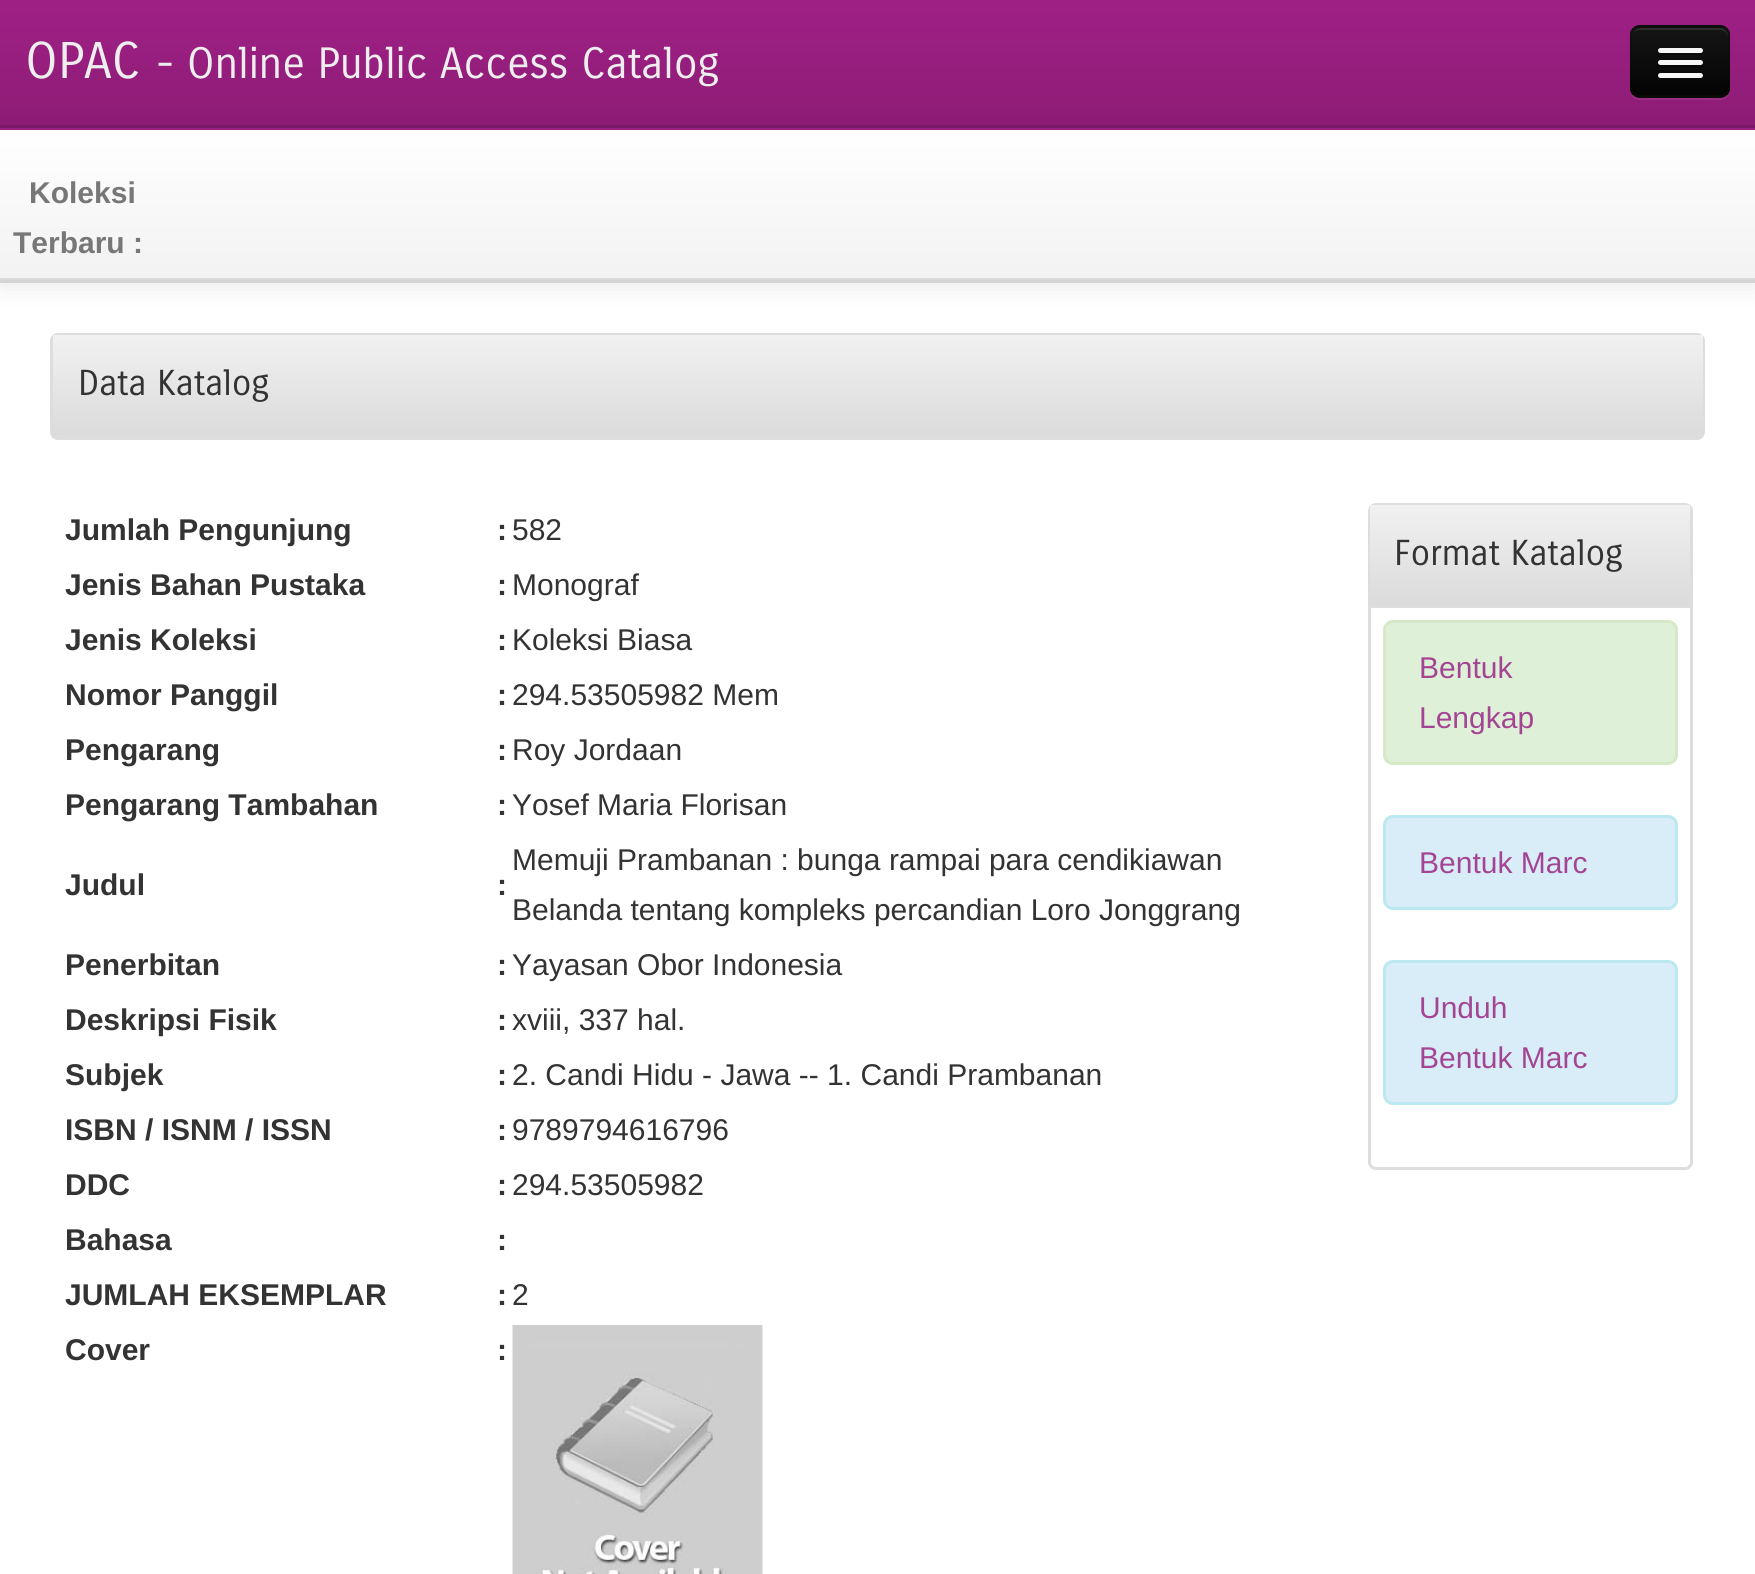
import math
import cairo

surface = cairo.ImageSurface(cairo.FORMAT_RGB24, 1755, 1574)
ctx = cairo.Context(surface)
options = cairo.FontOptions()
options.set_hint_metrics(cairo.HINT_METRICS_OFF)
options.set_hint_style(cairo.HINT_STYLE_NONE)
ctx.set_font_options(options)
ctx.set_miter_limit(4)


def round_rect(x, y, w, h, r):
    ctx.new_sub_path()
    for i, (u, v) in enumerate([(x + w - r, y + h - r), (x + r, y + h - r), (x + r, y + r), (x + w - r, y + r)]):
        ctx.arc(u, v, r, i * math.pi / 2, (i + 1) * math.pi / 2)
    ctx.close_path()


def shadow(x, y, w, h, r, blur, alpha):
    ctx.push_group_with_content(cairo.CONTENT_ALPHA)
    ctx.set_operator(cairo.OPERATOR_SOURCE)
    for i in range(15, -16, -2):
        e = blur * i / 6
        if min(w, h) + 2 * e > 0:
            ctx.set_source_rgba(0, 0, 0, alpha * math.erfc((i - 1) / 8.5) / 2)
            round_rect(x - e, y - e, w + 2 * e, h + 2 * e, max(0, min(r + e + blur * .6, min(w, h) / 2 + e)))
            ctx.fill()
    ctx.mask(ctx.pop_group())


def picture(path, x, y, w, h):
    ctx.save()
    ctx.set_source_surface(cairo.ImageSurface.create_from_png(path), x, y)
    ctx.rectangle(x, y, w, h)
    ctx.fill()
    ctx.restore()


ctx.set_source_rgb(1, 1, 1)
ctx.paint()
gradient = cairo.LinearGradient(878, 0, 878, 128)
gradient.add_color_stop_rgba(0, 0.624, 0.125, 0.522, 1)
gradient.add_color_stop_rgba(1, 0.553, 0.11, 0.463, 1)
ctx.set_source(gradient)
ctx.rectangle(0, 0, 1755, 125)
ctx.fill()
ctx.set_source_rgb(0.498, 0.098, 0.416)
ctx.rectangle(0, 125, 1755, 3)
ctx.fill()
ctx.set_source_rgb(0.624, 0.125, 0.522)
ctx.rectangle(0, 128, 1755, 2)
ctx.fill()
ctx.select_font_face("Carrois Gothic")
ctx.set_font_size(50)
ctx.set_source_rgb(0.933, 0.933, 0.933)
ctx.move_to(25, 78)
ctx.show_text("OPAC")
ctx.set_font_size(42.5)
ctx.move_to(156, 78)
ctx.show_text("- Online Public Access Catalog")
ctx.set_source_rgb(0, 0, 0)
shadow(0, 133, 1755, 152, 0, 12.5, 0.1)
ctx.set_source_rgb(0.6, 0.18, 0.514)
ctx.new_path()
ctx.move_to(1630, 88)
ctx.curve_to(1630, 103, 1641, 100, 1653, 100)
ctx.line_to(1707, 100)
ctx.curve_to(1719, 100, 1730, 103, 1730, 88)
ctx.curve_to(1730, 93, 1726, 98, 1720, 98)
ctx.line_to(1640, 98)
ctx.curve_to(1634, 98, 1630, 93, 1630, 88)
ctx.close_path()
ctx.fill()
ctx.set_source_rgb(0.055, 0.055, 0.055)
round_rect(1630, 25, 100, 73, 10)
ctx.fill()
ctx.save()
round_rect(1630, 25, 100, 73, 10)
ctx.clip()
gradient = cairo.LinearGradient(1680, 27, 1680, 95)
gradient.add_color_stop_rgba(0, 0.082, 0.082, 0.082, 1)
gradient.add_color_stop_rgba(1, 0.016, 0.016, 0.016, 1)
ctx.set_source(gradient)
ctx.rectangle(1630, 28, 100, 67)
ctx.fill()
ctx.restore()
ctx.set_source_rgb(0.173, 0.173, 0.173)
ctx.new_path()
ctx.move_to(1640, 30)
ctx.line_to(1720, 30)
ctx.curve_to(1724, 30, 1728, 33, 1728, 38)
ctx.line_to(1728, 36)
ctx.curve_to(1728, 32, 1724, 28, 1720, 28)
ctx.line_to(1641, 28)
ctx.curve_to(1638, 28, 1635, 30, 1633, 33)
ctx.curve_to(1635, 31, 1638, 30, 1640, 30)
ctx.close_path()
ctx.fill()
ctx.new_path()
ctx.move_to(1726, 93.5)
ctx.curve_to(1724.5, 95.5, 1722.5, 96, 1720, 96)
ctx.line_to(1640, 96)
ctx.curve_to(1637.5, 96, 1635.5, 95.5, 1634, 93.5)
ctx.set_source_rgba(0, 0, 0, 0.25)
ctx.set_line_width(2.5)
ctx.stroke()
ctx.new_path()
ctx.move_to(1634, 93.5)
ctx.curve_to(1632, 92, 1631, 90, 1631, 87.5)
ctx.line_to(1631, 35)
ctx.curve_to(1631, 32.5, 1632, 30.5, 1634, 29)
ctx.curve_to(1635.5, 27, 1637.5, 26, 1640, 26)
ctx.line_to(1720, 26)
ctx.curve_to(1722.5, 26, 1724.5, 27, 1726, 29)
ctx.curve_to(1728, 30.5, 1729, 32.5, 1729, 35)
ctx.line_to(1729, 87.5)
ctx.curve_to(1729, 90, 1728, 92, 1726, 93.5)
ctx.set_source_rgba(0, 0, 0, 0.1)
ctx.stroke()
ctx.set_source_rgb(0.043, 0.043, 0.043)
ctx.new_path()
ctx.move_to(1658, 52)
ctx.curve_to(1656, 57, 1666, 55, 1667, 55)
ctx.line_to(1694, 55)
ctx.curve_to(1695, 55, 1702, 57, 1703, 53)
ctx.line_to(1702, 51)
ctx.line_to(1700, 52)
ctx.line_to(1660, 52)
ctx.close_path()
ctx.fill()
ctx.set_source_rgb(0.961, 0.961, 0.961)
round_rect(1658, 48, 45, 5, 2.5)
ctx.fill()
ctx.set_source_rgb(0.031, 0.031, 0.031)
ctx.new_path()
ctx.move_to(1658, 64)
ctx.curve_to(1656, 69, 1667, 68, 1667, 68)
ctx.line_to(1694, 68)
ctx.curve_to(1695, 68, 1702, 70, 1703, 66)
ctx.line_to(1702, 64)
ctx.line_to(1700, 65)
ctx.curve_to(1697, 65, 1660, 66, 1658, 64)
ctx.close_path()
ctx.fill()
ctx.set_source_rgb(0.961, 0.961, 0.961)
round_rect(1658, 60, 45, 5, 2.5)
ctx.fill()
round_rect(1658, 73, 45, 5, 2.5)
ctx.fill()
gradient = cairo.LinearGradient(878, 130, 878, 280)
gradient.add_color_stop_rgba(0, 1, 1, 1, 1)
gradient.add_color_stop_rgba(1, 0.949, 0.949, 0.949, 1)
ctx.set_source(gradient)
ctx.rectangle(0, 130, 1755, 148)
ctx.fill()
gradient = cairo.LinearGradient(878, 130, 878, 280)
gradient.add_color_stop_rgba(0, 0.902, 0.902, 0.902, 1)
gradient.add_color_stop_rgba(1, 0.855, 0.855, 0.855, 1)
ctx.set_source(gradient)
ctx.rectangle(0, 278, 1755, 2)
ctx.fill()
ctx.set_source_rgb(0.831, 0.831, 0.831)
ctx.rectangle(0, 280, 1755, 3)
ctx.fill()
ctx.select_font_face("Liberation Sans", cairo.FONT_SLANT_NORMAL, cairo.FONT_WEIGHT_BOLD)
ctx.set_font_size(30)
ctx.set_source_rgb(0.467, 0.467, 0.467)
ctx.move_to(29, 203)
ctx.show_text("Koleksi")
ctx.move_to(13, 253)
ctx.show_text("Terbaru :")
round_rect(51.5, 334.5, 1652, 104, 6.5)
ctx.set_source_rgb(0.867, 0.867, 0.867)
ctx.set_line_width(3)
ctx.stroke()
gradient = cairo.LinearGradient(878, 335, 878, 435)
gradient.add_color_stop_rgba(0, 0.945, 0.945, 0.945, 1)
gradient.add_color_stop_rgba(1, 0.859, 0.859, 0.859, 1)
ctx.set_source(gradient)
ctx.rectangle(53, 335, 1650, 100)
ctx.fill()
ctx.set_source_rgb(0.867, 0.867, 0.867)
ctx.rectangle(53, 435, 1650, 3)
ctx.fill()
ctx.select_font_face("Carrois Gothic")
ctx.set_font_size(35)
ctx.set_source_rgb(0.2, 0.2, 0.2)
ctx.move_to(78, 395)
ctx.show_text("Data Katalog")
ctx.select_font_face("Liberation Sans", cairo.FONT_SLANT_NORMAL, cairo.FONT_WEIGHT_BOLD)
ctx.set_font_size(30)
ctx.move_to(65, 540)
ctx.show_text("Jumlah Pengunjung")
ctx.move_to(497, 540)
ctx.show_text(":")
ctx.select_font_face("Liberation Sans")
ctx.move_to(512, 540)
ctx.show_text("582")
ctx.select_font_face("Liberation Sans", cairo.FONT_SLANT_NORMAL, cairo.FONT_WEIGHT_BOLD)
ctx.move_to(65, 595)
ctx.show_text("Jenis Bahan Pustaka")
ctx.move_to(497, 595)
ctx.show_text(":")
ctx.select_font_face("Liberation Sans")
ctx.move_to(512, 595)
ctx.show_text("Monograf")
ctx.select_font_face("Liberation Sans", cairo.FONT_SLANT_NORMAL, cairo.FONT_WEIGHT_BOLD)
ctx.move_to(65, 650)
ctx.show_text("Jenis Koleksi")
ctx.move_to(497, 650)
ctx.show_text(":")
ctx.select_font_face("Liberation Sans")
ctx.move_to(512, 650)
ctx.show_text("Koleksi Biasa")
ctx.select_font_face("Liberation Sans", cairo.FONT_SLANT_NORMAL, cairo.FONT_WEIGHT_BOLD)
ctx.move_to(65, 705)
ctx.show_text("Nomor Panggil")
ctx.move_to(497, 705)
ctx.show_text(":")
ctx.select_font_face("Liberation Sans")
ctx.move_to(512, 705)
ctx.show_text("294.53505982 Mem")
ctx.select_font_face("Liberation Sans", cairo.FONT_SLANT_NORMAL, cairo.FONT_WEIGHT_BOLD)
ctx.move_to(65, 760)
ctx.show_text("Pengarang")
ctx.move_to(497, 760)
ctx.show_text(":")
ctx.select_font_face("Liberation Sans")
ctx.move_to(512, 760)
ctx.show_text("Roy Jordaan")
ctx.select_font_face("Liberation Sans", cairo.FONT_SLANT_NORMAL, cairo.FONT_WEIGHT_BOLD)
ctx.move_to(65, 815)
ctx.show_text("Pengarang Tambahan")
ctx.move_to(497, 815)
ctx.show_text(":")
ctx.select_font_face("Liberation Sans")
ctx.move_to(512, 815)
ctx.show_text("Yosef Maria Florisan")
ctx.select_font_face("Liberation Sans", cairo.FONT_SLANT_NORMAL, cairo.FONT_WEIGHT_BOLD)
ctx.move_to(65, 895)
ctx.show_text("Judul")
ctx.move_to(497, 895)
ctx.show_text(":")
ctx.select_font_face("Liberation Sans")
ctx.move_to(512, 870)
ctx.show_text("Memuji Prambanan : bunga rampai para cendikiawan")
ctx.move_to(512, 920)
ctx.show_text("Belanda tentang kompleks percandian Loro Jonggrang")
ctx.select_font_face("Liberation Sans", cairo.FONT_SLANT_NORMAL, cairo.FONT_WEIGHT_BOLD)
ctx.move_to(65, 975)
ctx.show_text("Penerbitan")
ctx.move_to(497, 975)
ctx.show_text(":")
ctx.select_font_face("Liberation Sans")
ctx.move_to(512, 975)
ctx.show_text("Yayasan Obor Indonesia")
ctx.select_font_face("Liberation Sans", cairo.FONT_SLANT_NORMAL, cairo.FONT_WEIGHT_BOLD)
ctx.move_to(65, 1030)
ctx.show_text("Deskripsi Fisik")
ctx.move_to(497, 1030)
ctx.show_text(":")
ctx.select_font_face("Liberation Sans")
ctx.move_to(512, 1030)
ctx.show_text("xviii, 337 hal.")
ctx.select_font_face("Liberation Sans", cairo.FONT_SLANT_NORMAL, cairo.FONT_WEIGHT_BOLD)
ctx.move_to(65, 1085)
ctx.show_text("Subjek")
ctx.move_to(497, 1085)
ctx.show_text(":")
ctx.select_font_face("Liberation Sans")
ctx.move_to(512, 1085)
ctx.show_text("2. Candi Hidu - Jawa -- 1. Candi Prambanan")
ctx.select_font_face("Liberation Sans", cairo.FONT_SLANT_NORMAL, cairo.FONT_WEIGHT_BOLD)
ctx.move_to(65, 1140)
ctx.show_text("ISBN / ISNM / ISSN")
ctx.move_to(497, 1140)
ctx.show_text(":")
ctx.select_font_face("Liberation Sans")
ctx.move_to(512, 1140)
ctx.show_text("9789794616796")
ctx.select_font_face("Liberation Sans", cairo.FONT_SLANT_NORMAL, cairo.FONT_WEIGHT_BOLD)
ctx.move_to(65, 1195)
ctx.show_text("DDC")
ctx.move_to(497, 1195)
ctx.show_text(":")
ctx.select_font_face("Liberation Sans")
ctx.move_to(512, 1195)
ctx.show_text("294.53505982")
ctx.select_font_face("Liberation Sans", cairo.FONT_SLANT_NORMAL, cairo.FONT_WEIGHT_BOLD)
ctx.move_to(65, 1250)
ctx.show_text("Bahasa")
ctx.move_to(497, 1250)
ctx.show_text(":")
ctx.move_to(65, 1305)
ctx.show_text("JUMLAH EKSEMPLAR")
ctx.move_to(497, 1305)
ctx.show_text(":")
ctx.select_font_face("Liberation Sans")
ctx.move_to(512, 1305)
ctx.show_text("2")
ctx.select_font_face("Liberation Sans", cairo.FONT_SLANT_NORMAL, cairo.FONT_WEIGHT_BOLD)
ctx.move_to(65, 1360)
ctx.show_text("Cover")
ctx.move_to(497, 1360)
ctx.show_text(":")
picture("img1.png", 512, 1325, 251, 249)
round_rect(1369.5, 504.5, 322, 664, 6.5)
ctx.set_source_rgb(0.867, 0.867, 0.867)
ctx.stroke()
gradient = cairo.LinearGradient(1530, 505, 1530, 605)
gradient.add_color_stop_rgba(0, 0.945, 0.945, 0.945, 1)
gradient.add_color_stop_rgba(1, 0.859, 0.859, 0.859, 1)
ctx.set_source(gradient)
ctx.rectangle(1370, 505, 320, 100)
ctx.fill()
ctx.set_source_rgb(0.867, 0.867, 0.867)
ctx.rectangle(1370, 605, 320, 3)
ctx.fill()
ctx.select_font_face("Carrois Gothic")
ctx.set_font_size(35)
ctx.set_source_rgb(0.2, 0.2, 0.2)
ctx.move_to(1394, 565)
ctx.show_text("Format Katalog")
ctx.set_source_rgb(0.875, 0.941, 0.847)
round_rect(1384.5, 621.5, 292, 142, 8.5)
ctx.fill_preserve()
ctx.set_source_rgb(0.839, 0.914, 0.776)
ctx.stroke()
ctx.select_font_face("Liberation Sans")
ctx.set_font_size(30)
ctx.set_source_rgb(0.643, 0.271, 0.576)
ctx.move_to(1419, 678)
ctx.show_text("Bentuk")
ctx.move_to(1419, 728)
ctx.show_text("Lengkap")
ctx.set_source_rgb(0.851, 0.929, 0.969)
round_rect(1384.5, 816.5, 292, 92, 8.5)
ctx.fill_preserve()
ctx.set_source_rgb(0.737, 0.91, 0.945)
ctx.stroke()
ctx.set_source_rgb(0.643, 0.271, 0.576)
ctx.move_to(1419, 873)
ctx.show_text("Bentuk Marc")
ctx.set_source_rgb(0.851, 0.929, 0.969)
round_rect(1384.5, 961.5, 292, 142, 8.5)
ctx.fill_preserve()
ctx.set_source_rgb(0.737, 0.91, 0.945)
ctx.stroke()
ctx.set_source_rgb(0.643, 0.271, 0.576)
ctx.move_to(1419, 1018)
ctx.show_text("Unduh")
ctx.move_to(1419, 1068)
ctx.show_text("Bentuk Marc")
surface.write_to_png("page.png")
